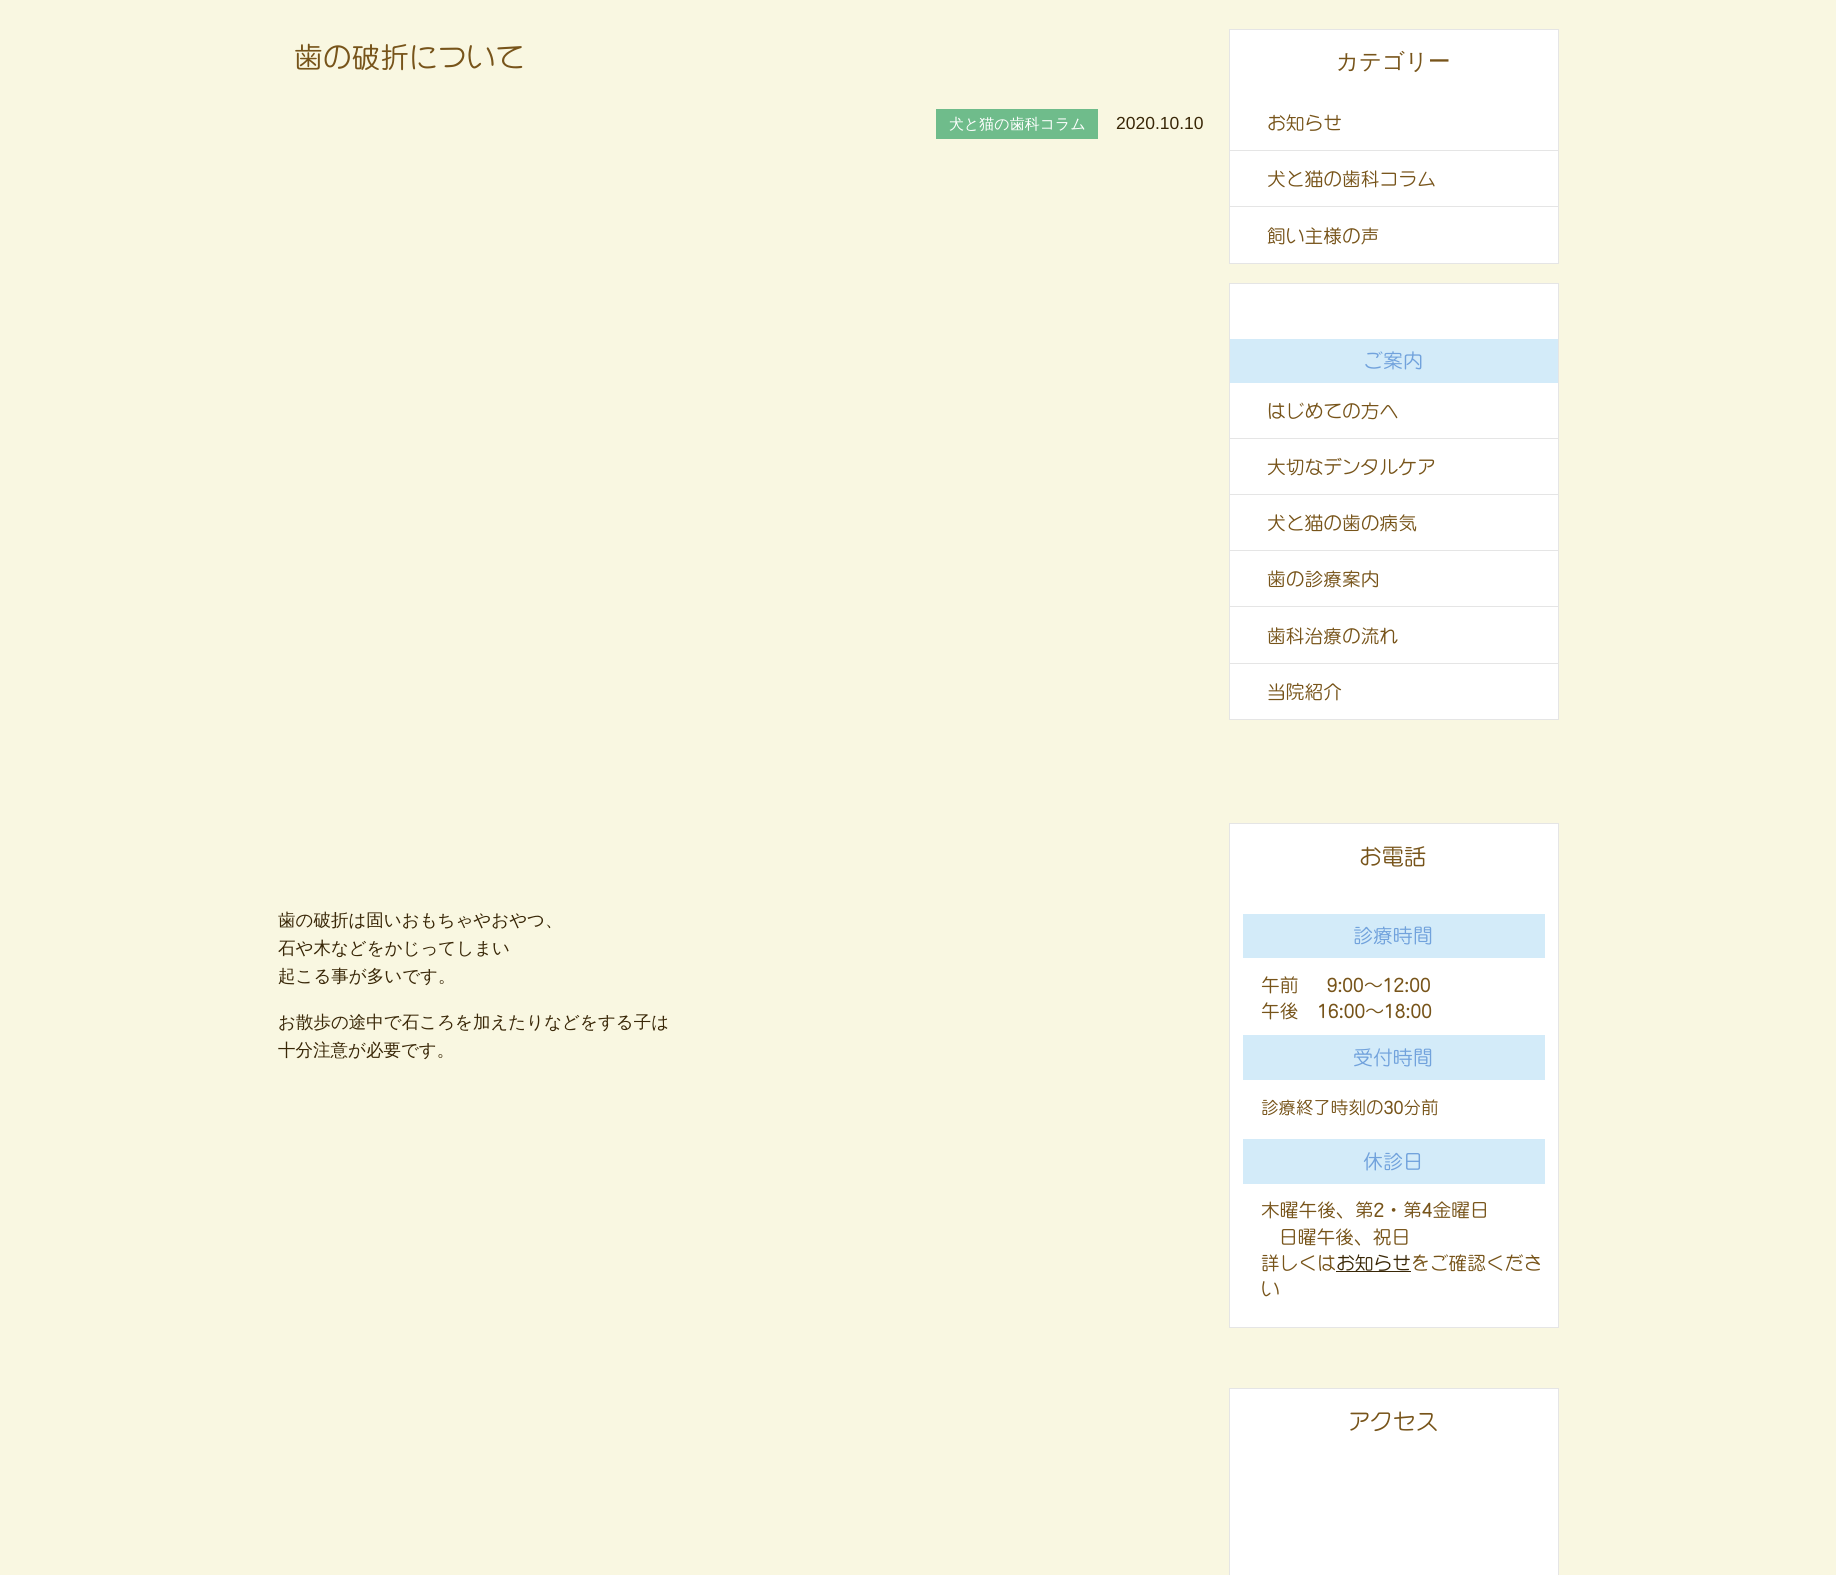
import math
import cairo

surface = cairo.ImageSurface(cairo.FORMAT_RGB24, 1836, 1575)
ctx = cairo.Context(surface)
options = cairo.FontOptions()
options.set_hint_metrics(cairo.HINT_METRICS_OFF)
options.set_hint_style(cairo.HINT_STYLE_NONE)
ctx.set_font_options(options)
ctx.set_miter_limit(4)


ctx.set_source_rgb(0.973, 0.965, 0.882)
ctx.paint()
ctx.select_font_face("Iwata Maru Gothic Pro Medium")
ctx.set_font_size(28.75)
ctx.set_source_rgb(0.467, 0.329, 0.102)
ctx.move_to(294, 68)
ctx.show_text("歯の破折について")
ctx.set_source_rgb(0.435, 0.737, 0.545)
ctx.rectangle(936, 109, 162, 30)
ctx.fill()
ctx.select_font_face("WenQuanYi Zen Hei Medium")
ctx.set_font_size(15)
ctx.set_source_rgb(1, 1, 1)
ctx.move_to(949, 129)
ctx.show_text("犬と猫の歯科コラム")
ctx.select_font_face("Liberation Sans")
ctx.set_font_size(17.5)
ctx.set_source_rgb(0.224, 0.153, 0.031)
ctx.move_to(1116, 129)
ctx.show_text("2020.10.10")
ctx.select_font_face("WenQuanYi Zen Hei Medium")
ctx.move_to(278, 926)
ctx.show_text("歯の破折は固いおもちゃやおやつ、")
ctx.move_to(278, 954)
ctx.show_text("石や木などをかじってしまい")
ctx.move_to(278, 982)
ctx.show_text("起こる事が多いです。")
ctx.move_to(278, 1028)
ctx.show_text("お散歩の途中で石ころを加えたりなどをする子は")
ctx.move_to(278, 1056)
ctx.show_text("十分注意が必要です。")
ctx.set_source_rgb(1, 1, 1)
ctx.rectangle(1229.5, 29.5, 329, 234)
ctx.fill_preserve()
ctx.set_source_rgb(0.898, 0.898, 0.898)
ctx.set_line_width(1)
ctx.stroke()
ctx.set_font_size(22.5)
ctx.set_source_rgb(0.467, 0.329, 0.102)
ctx.move_to(1336, 69)
ctx.show_text("カテゴリー")
ctx.set_source_rgb(0.898, 0.898, 0.898)
ctx.rectangle(1230, 150, 328, 1)
ctx.fill()
ctx.select_font_face("Iwata Maru Gothic Pro Medium")
ctx.set_font_size(18.75)
ctx.set_source_rgb(0.467, 0.329, 0.102)
ctx.move_to(1267, 130)
ctx.show_text("お知らせ")
ctx.set_source_rgb(0.898, 0.898, 0.898)
ctx.rectangle(1230, 206, 328, 1)
ctx.fill()
ctx.set_source_rgb(0.467, 0.329, 0.102)
ctx.move_to(1267, 186)
ctx.show_text("犬と猫の歯科コラム")
ctx.move_to(1267, 243)
ctx.show_text("飼い主様の声")
ctx.set_source_rgb(1, 1, 1)
ctx.rectangle(1229.5, 283.5, 329, 436)
ctx.fill_preserve()
ctx.set_source_rgb(0.898, 0.898, 0.898)
ctx.stroke()
ctx.set_source_rgb(0.827, 0.918, 0.973)
ctx.rectangle(1230, 339, 328, 44)
ctx.fill()
ctx.set_font_size(20)
ctx.set_source_rgb(0.443, 0.635, 0.863)
ctx.move_to(1363, 368)
ctx.show_text("ご案内")
ctx.set_source_rgb(0.898, 0.898, 0.898)
ctx.rectangle(1230, 438, 328, 1)
ctx.fill()
ctx.set_font_size(18.75)
ctx.set_source_rgb(0.467, 0.329, 0.102)
ctx.move_to(1267, 418)
ctx.show_text("はじめての方へ")
ctx.set_source_rgb(0.898, 0.898, 0.898)
ctx.rectangle(1230, 494, 328, 1)
ctx.fill()
ctx.set_source_rgb(0.467, 0.329, 0.102)
ctx.move_to(1267, 474)
ctx.show_text("大切なデンタルケア")
ctx.set_source_rgb(0.898, 0.898, 0.898)
ctx.rectangle(1230, 550, 328, 1)
ctx.fill()
ctx.set_source_rgb(0.467, 0.329, 0.102)
ctx.move_to(1267, 530)
ctx.show_text("犬と猫の歯の病気")
ctx.set_source_rgb(0.898, 0.898, 0.898)
ctx.rectangle(1230, 606, 328, 1)
ctx.fill()
ctx.set_source_rgb(0.467, 0.329, 0.102)
ctx.move_to(1267, 586)
ctx.show_text("歯の診療案内")
ctx.set_source_rgb(0.898, 0.898, 0.898)
ctx.rectangle(1230, 663, 328, 1)
ctx.fill()
ctx.set_source_rgb(0.467, 0.329, 0.102)
ctx.move_to(1267, 643)
ctx.show_text("歯科治療の流れ")
ctx.move_to(1267, 699)
ctx.show_text("当院紹介")
ctx.set_source_rgb(1, 1, 1)
ctx.rectangle(1229.5, 823.5, 329, 504)
ctx.fill_preserve()
ctx.set_source_rgb(0.898, 0.898, 0.898)
ctx.stroke()
ctx.set_font_size(22.5)
ctx.set_source_rgb(0.467, 0.329, 0.102)
ctx.move_to(1359, 865)
ctx.show_text("お電話")
ctx.set_source_rgb(0.827, 0.918, 0.973)
ctx.rectangle(1243, 914, 302, 44)
ctx.fill()
ctx.set_font_size(20)
ctx.set_source_rgb(0.443, 0.635, 0.863)
ctx.move_to(1353, 943)
ctx.show_text("診療時間")
ctx.set_font_size(18.75)
ctx.set_source_rgb(0.467, 0.329, 0.102)
ctx.move_to(1261, 992)
ctx.show_text("午前　 9:00～12:00")
ctx.move_to(1261, 1018)
ctx.show_text("午後　16:00～18:00")
ctx.set_source_rgb(0.827, 0.918, 0.973)
ctx.rectangle(1243, 1035, 302, 45)
ctx.fill()
ctx.set_font_size(20)
ctx.set_source_rgb(0.443, 0.635, 0.863)
ctx.move_to(1353, 1065)
ctx.show_text("受付時間")
ctx.set_font_size(17.5)
ctx.set_source_rgb(0.467, 0.329, 0.102)
ctx.move_to(1261, 1114)
ctx.show_text("診療終了時刻の30分前")
ctx.set_source_rgb(0.827, 0.918, 0.973)
ctx.rectangle(1243, 1139, 302, 45)
ctx.fill()
ctx.set_font_size(20)
ctx.set_source_rgb(0.443, 0.635, 0.863)
ctx.move_to(1363, 1169)
ctx.show_text("休診日")
ctx.set_font_size(18.75)
ctx.set_source_rgb(0.467, 0.329, 0.102)
ctx.move_to(1261, 1217)
ctx.show_text("木曜午後、第2・第4金曜日")
ctx.move_to(1279, 1244)
ctx.show_text("日曜午後、祝日")
ctx.move_to(1261, 1270)
ctx.show_text("詳しくは")
ctx.set_source_rgb(0.224, 0.153, 0.031)
ctx.rectangle(1336, 1271, 75, 1)
ctx.fill()
ctx.move_to(1336, 1270)
ctx.show_text("お知らせ")
ctx.set_source_rgb(0.467, 0.329, 0.102)
ctx.move_to(1411, 1270)
ctx.show_text("をご確認くださ")
ctx.move_to(1261, 1296)
ctx.show_text("い")
ctx.set_source_rgb(1, 1, 1)
ctx.rectangle(1229.5, 1388.5, 329, 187)
ctx.fill_preserve()
ctx.set_source_rgb(0.898, 0.898, 0.898)
ctx.stroke()
ctx.set_font_size(22.5)
ctx.set_source_rgb(0.467, 0.329, 0.102)
ctx.move_to(1348, 1430)
ctx.show_text("アクセス")
surface.write_to_png("page.png")
